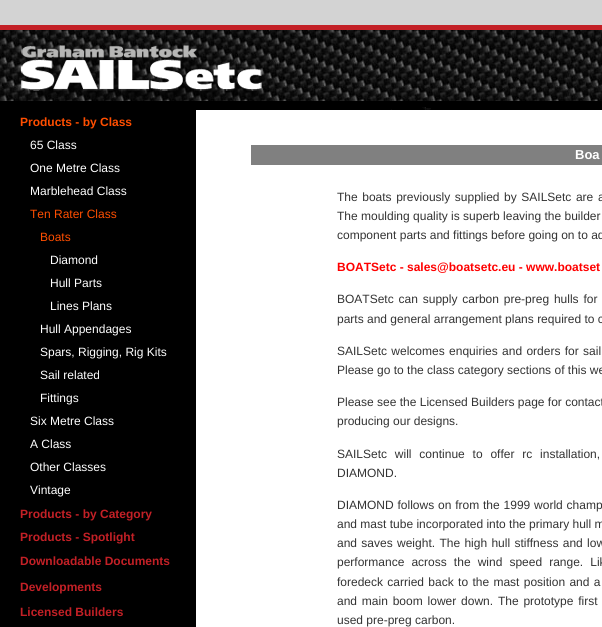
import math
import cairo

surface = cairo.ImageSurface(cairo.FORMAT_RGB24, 602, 627)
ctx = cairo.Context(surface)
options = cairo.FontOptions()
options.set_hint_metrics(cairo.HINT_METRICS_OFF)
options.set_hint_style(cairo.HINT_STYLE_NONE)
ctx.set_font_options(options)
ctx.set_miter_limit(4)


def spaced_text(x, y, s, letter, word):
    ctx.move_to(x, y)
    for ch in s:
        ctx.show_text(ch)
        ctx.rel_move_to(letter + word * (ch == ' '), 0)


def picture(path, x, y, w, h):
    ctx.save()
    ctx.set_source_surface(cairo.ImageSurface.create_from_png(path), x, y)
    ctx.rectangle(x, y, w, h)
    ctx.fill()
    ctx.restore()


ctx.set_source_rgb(0.827, 0.827, 0.827)
ctx.paint()
ctx.set_source_rgb(0, 0, 0)
ctx.rectangle(0, 110, 196, 517)
ctx.fill()
ctx.set_source_rgb(0.765, 0.125, 0.149)
ctx.rectangle(0, 25, 602, 5)
ctx.fill()
picture("img1.png", 0, 30, 602, 80)
picture("img2.png", 21, 45, 250, 55)
ctx.select_font_face("Liberation Sans", cairo.FONT_SLANT_NORMAL, cairo.FONT_WEIGHT_BOLD)
ctx.set_font_size(12)
ctx.set_source_rgb(1, 0.306, 0)
ctx.move_to(20, 126)
ctx.show_text("Products - by Class")
ctx.select_font_face("Liberation Sans")
ctx.set_source_rgb(1, 1, 1)
ctx.move_to(30, 149)
ctx.show_text("65 Class")
ctx.move_to(30, 172)
ctx.show_text("One Metre Class")
ctx.move_to(30, 195)
ctx.show_text("Marblehead Class")
ctx.set_source_rgb(1, 0.306, 0)
ctx.move_to(30, 218)
ctx.show_text("Ten Rater Class")
ctx.move_to(40, 241)
ctx.show_text("Boats")
ctx.set_source_rgb(1, 1, 1)
ctx.move_to(50, 264)
ctx.show_text("Diamond")
ctx.move_to(50, 287)
ctx.show_text("Hull Parts")
ctx.move_to(50, 310)
ctx.show_text("Lines Plans")
ctx.move_to(40, 333)
ctx.show_text("Hull Appendages")
ctx.move_to(40, 356)
ctx.show_text("Spars, Rigging, Rig Kits")
ctx.move_to(40, 379)
ctx.show_text("Sail related")
ctx.move_to(40, 402)
ctx.show_text("Fittings")
ctx.move_to(30, 425)
ctx.show_text("Six Metre Class")
ctx.move_to(30, 448)
ctx.show_text("A Class")
ctx.move_to(30, 471)
ctx.show_text("Other Classes")
ctx.move_to(30, 494)
ctx.show_text("Vintage")
ctx.select_font_face("Liberation Sans", cairo.FONT_SLANT_NORMAL, cairo.FONT_WEIGHT_BOLD)
ctx.set_source_rgb(0.765, 0.125, 0.149)
ctx.move_to(20, 518)
ctx.show_text("Products - by Category")
ctx.move_to(20, 541)
ctx.show_text("Products - Spotlight")
ctx.move_to(20, 565)
ctx.show_text("Downloadable Documents")
ctx.move_to(20, 591)
ctx.show_text("Developments")
ctx.move_to(20, 616)
ctx.show_text("Licensed Builders")
ctx.set_source_rgb(1, 1, 1)
ctx.rectangle(196, 110, 406, 517)
ctx.fill()
ctx.set_source_rgb(0.502, 0.502, 0.502)
ctx.rectangle(251, 145, 351, 20)
ctx.fill()
ctx.set_font_size(13)
ctx.set_source_rgb(1, 1, 1)
ctx.move_to(575, 159)
ctx.show_text("Boa")
ctx.select_font_face("Liberation Sans")
ctx.set_font_size(12)
ctx.set_source_rgb(0.2, 0.2, 0.2)
spaced_text(337, 201, "The boats previously supplied by SAILSetc are a", 0, 1.25)
ctx.move_to(337, 220)
ctx.show_text("The moulding quality is superb leaving the builder")
ctx.move_to(337, 239)
ctx.show_text("component parts and fittings before going on to ad")
ctx.select_font_face("Liberation Sans", cairo.FONT_SLANT_NORMAL, cairo.FONT_WEIGHT_BOLD)
ctx.set_source_rgb(1, 0, 0)
ctx.move_to(337, 271)
ctx.show_text("BOATSetc - sales@boatsetc.eu - www.boatset")
ctx.select_font_face("Liberation Sans")
ctx.set_source_rgb(0.2, 0.2, 0.2)
spaced_text(337, 303, "BOATSetc can supply carbon pre-preg hulls for", 0, 1.5)
ctx.move_to(337, 323)
ctx.show_text("parts and general arrangement plans required to c")
spaced_text(337, 355, "SAILSetc welcomes enquiries and orders for sail", 0, 1)
ctx.move_to(337, 374)
ctx.show_text("Please go to the class category sections of this we")
ctx.move_to(337, 406)
ctx.show_text("Please see the Licensed Builders page for contact")
ctx.move_to(337, 425)
ctx.show_text("producing our designs.")
spaced_text(337, 458, "SAILSetc will continue to offer rc installation,", 0, 4.5)
ctx.move_to(337, 477)
ctx.show_text("DIAMOND.")
spaced_text(337, 509, "DIAMOND follows on from the 1999 world champ", 0, 0.5)
ctx.move_to(337, 528)
ctx.show_text("and mast tube incorporated into the primary hull m")
spaced_text(337, 547, "and saves weight. The high hull stiffness and low", 0, 1)
spaced_text(337, 566, "performance across the wind speed range. Lik", 0, 3.75)
spaced_text(337, 586, "foredeck carried back to the mast position and a", 0, 1)
spaced_text(337, 605, "and main boom lower down. The prototype first", 0, 1.5)
ctx.move_to(337, 624)
ctx.show_text("used pre-preg carbon.")
surface.write_to_png("page.png")
